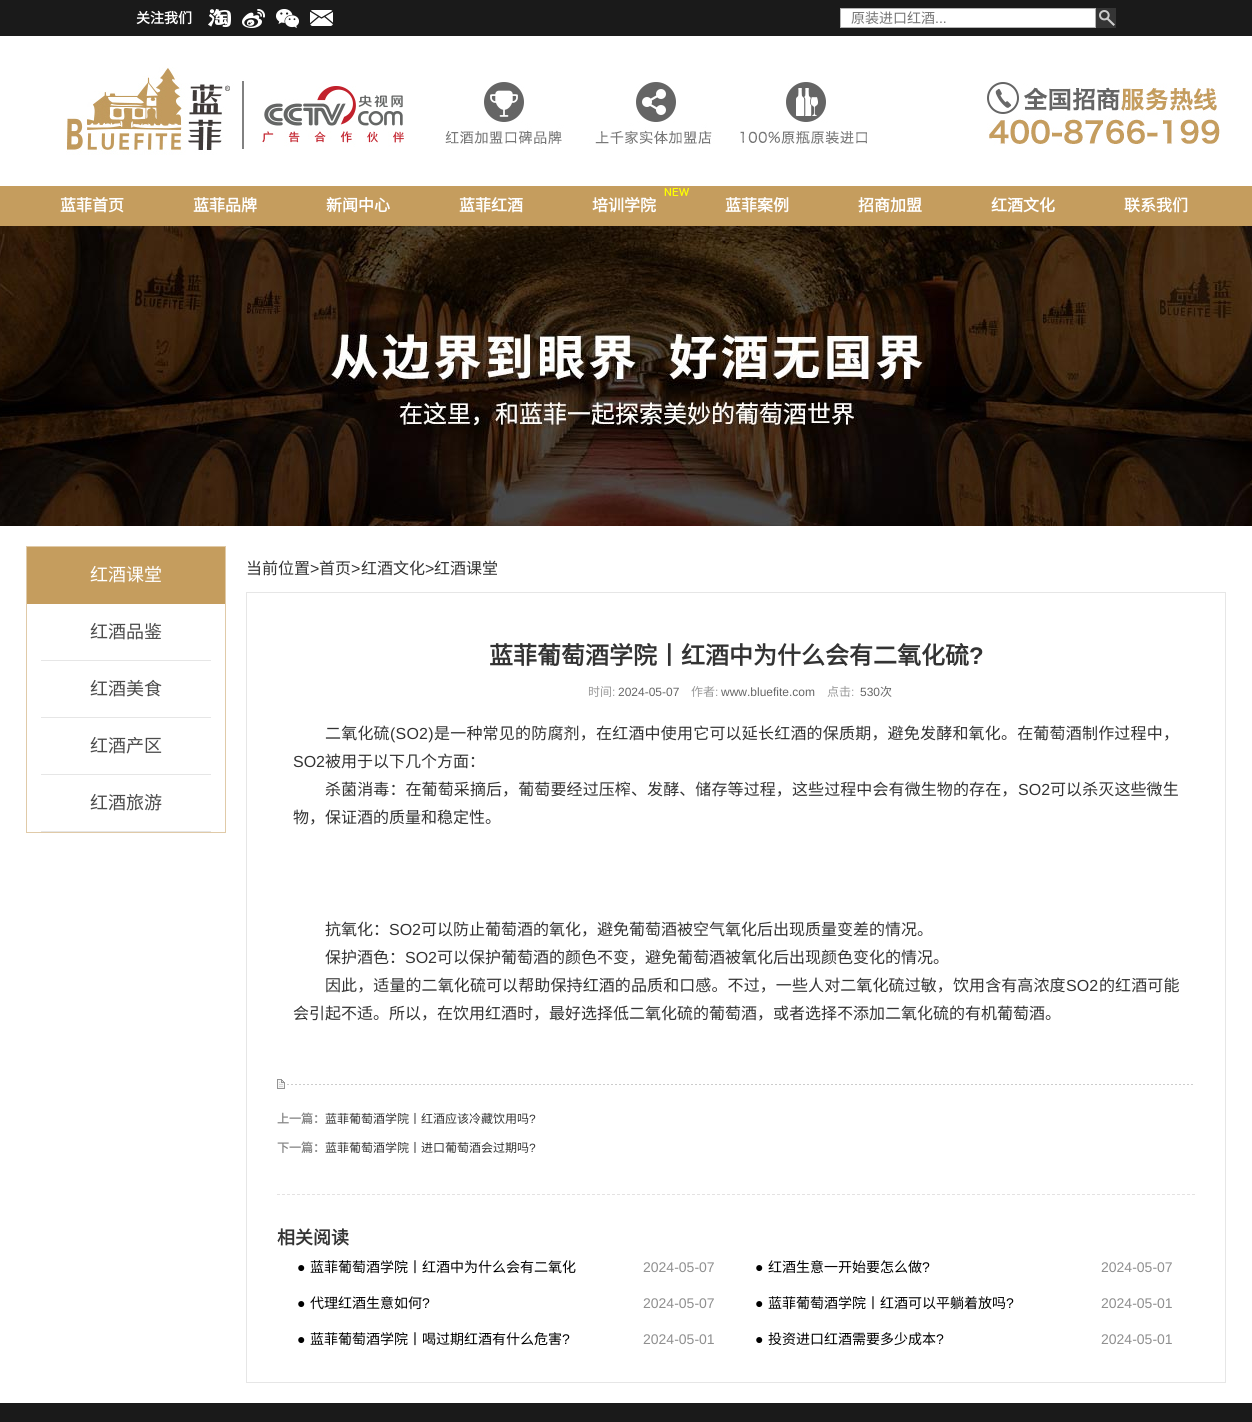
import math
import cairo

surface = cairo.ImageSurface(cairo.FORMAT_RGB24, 1252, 1422)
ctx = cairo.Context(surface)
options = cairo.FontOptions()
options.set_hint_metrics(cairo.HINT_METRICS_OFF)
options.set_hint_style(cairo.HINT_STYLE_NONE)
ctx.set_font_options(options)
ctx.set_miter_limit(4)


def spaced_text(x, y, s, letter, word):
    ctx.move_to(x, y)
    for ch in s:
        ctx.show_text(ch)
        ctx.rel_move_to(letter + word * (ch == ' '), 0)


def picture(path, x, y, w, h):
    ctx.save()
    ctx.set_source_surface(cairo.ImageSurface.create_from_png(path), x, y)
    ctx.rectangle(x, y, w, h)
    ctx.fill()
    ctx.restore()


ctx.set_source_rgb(1, 1, 1)
ctx.paint()
ctx.set_source_rgb(0.102, 0.102, 0.102)
ctx.rectangle(0, 0, 1252, 36)
ctx.fill()
ctx.select_font_face("Noto Sans CJK SC", cairo.FONT_SLANT_NORMAL, cairo.FONT_WEIGHT_BOLD)
ctx.set_font_size(14)
ctx.set_source_rgb(1, 1, 1)
ctx.move_to(136, 23)
ctx.show_text("关注我们")
picture("img1.png", 208, 9, 23, 18)
picture("img2.png", 242, 9, 23, 19)
picture("img3.png", 276, 9, 23, 19)
picture("img4.png", 310, 10, 23, 16)
ctx.rectangle(840.5, 8.5, 255, 19)
ctx.fill_preserve()
ctx.set_source_rgb(0.702, 0.702, 0.702)
ctx.set_line_width(1)
ctx.stroke()
ctx.select_font_face("Noto Sans CJK SC")
ctx.set_source_rgb(0.459, 0.459, 0.459)
ctx.move_to(851, 23)
ctx.show_text("原装进口红酒")
ctx.select_font_face("Liberation Sans")
ctx.move_to(935, 23)
ctx.show_text("...")
picture("img5.png", 1096, 8, 20, 20)
picture("img6.png", 66, 67, 178, 88)
picture("img7.png", 262, 86, 142, 61)
picture("img8.png", 445, 82, 422, 62)
picture("img9.png", 987, 82, 233, 64)
ctx.set_source_rgb(0.773, 0.616, 0.369)
ctx.rectangle(0, 186, 1252, 40)
ctx.fill()
ctx.select_font_face("Noto Sans CJK SC", cairo.FONT_SLANT_NORMAL, cairo.FONT_WEIGHT_BOLD)
ctx.set_font_size(16)
ctx.set_source_rgb(1, 1, 1)
ctx.move_to(60, 211)
ctx.show_text("蓝菲首页")
ctx.move_to(193, 211)
ctx.show_text("蓝菲品牌")
ctx.move_to(326, 211)
ctx.show_text("新闻中心")
ctx.move_to(459, 211)
ctx.show_text("蓝菲红酒")
picture("img10.png", 664, 188, 26, 8)
ctx.move_to(592, 211)
ctx.show_text("培训学院")
ctx.move_to(725, 211)
ctx.show_text("蓝菲案例")
ctx.move_to(858, 211)
ctx.show_text("招商加盟")
ctx.move_to(991, 211)
ctx.show_text("红酒文化")
ctx.move_to(1124, 211)
ctx.show_text("联系我们")
picture("img11.png", 0, 226, 1252, 300)
ctx.rectangle(26.5, 546.5, 199, 286)
ctx.set_source_rgb(0.878, 0.792, 0.659)
ctx.stroke()
ctx.set_source_rgb(0.773, 0.616, 0.369)
ctx.rectangle(27, 547, 198, 57)
ctx.fill()
ctx.select_font_face("Noto Sans CJK SC")
ctx.set_font_size(18)
ctx.set_source_rgb(1, 1, 1)
ctx.move_to(90, 581)
ctx.show_text("红酒课堂")
ctx.set_source_rgb(0.902, 0.902, 0.902)
ctx.rectangle(41, 660, 170, 1)
ctx.fill()
ctx.set_source_rgb(0.298, 0.298, 0.298)
ctx.move_to(90, 638)
ctx.show_text("红酒品鉴")
ctx.set_source_rgb(0.902, 0.902, 0.902)
ctx.rectangle(41, 717, 170, 1)
ctx.fill()
ctx.set_source_rgb(0.298, 0.298, 0.298)
ctx.move_to(90, 695)
ctx.show_text("红酒美食")
ctx.set_source_rgb(0.902, 0.902, 0.902)
ctx.rectangle(41, 774, 170, 1)
ctx.fill()
ctx.set_source_rgb(0.298, 0.298, 0.298)
ctx.move_to(90, 752)
ctx.show_text("红酒产区")
ctx.set_source_rgb(0.902, 0.902, 0.902)
ctx.rectangle(41, 831, 170, 1)
ctx.fill()
ctx.set_source_rgb(0.298, 0.298, 0.298)
ctx.move_to(90, 809)
ctx.show_text("红酒旅游")
ctx.set_font_size(16)
ctx.set_source_rgb(0.2, 0.2, 0.2)
ctx.move_to(246, 574)
ctx.show_text("当前位置")
ctx.select_font_face("Liberation Sans")
ctx.move_to(310, 574)
ctx.show_text(">")
ctx.select_font_face("Noto Sans CJK SC")
ctx.move_to(319, 574)
ctx.show_text("首页")
ctx.select_font_face("Liberation Sans")
ctx.move_to(351, 574)
ctx.show_text(">")
ctx.select_font_face("Noto Sans CJK SC")
ctx.move_to(361, 574)
ctx.show_text("红酒文化")
ctx.select_font_face("Liberation Sans")
ctx.move_to(425, 574)
ctx.show_text(">")
ctx.select_font_face("Noto Sans CJK SC")
ctx.move_to(434, 574)
ctx.show_text("红酒课堂")
ctx.rectangle(246.5, 592.5, 979, 790)
ctx.set_source_rgb(0.902, 0.902, 0.902)
ctx.stroke()
ctx.select_font_face("Noto Sans CJK SC", cairo.FONT_SLANT_NORMAL, cairo.FONT_WEIGHT_BOLD)
ctx.set_font_size(24)
ctx.set_source_rgb(0.2, 0.2, 0.2)
ctx.move_to(489, 664)
ctx.show_text("蓝菲葡萄酒学院丨红酒中为什么会有二氧化硫")
ctx.select_font_face("Liberation Sans", cairo.FONT_SLANT_NORMAL, cairo.FONT_WEIGHT_BOLD)
ctx.move_to(969, 664)
ctx.show_text("?")
ctx.select_font_face("Noto Sans CJK SC")
ctx.set_font_size(12)
ctx.set_source_rgb(0.6, 0.6, 0.6)
ctx.move_to(588, 696)
ctx.show_text("时间")
ctx.select_font_face("Liberation Sans")
ctx.move_to(612, 696)
ctx.show_text(":")
ctx.set_source_rgb(0.4, 0.4, 0.4)
ctx.move_to(618, 696)
ctx.show_text("2024-05-07")
ctx.select_font_face("Noto Sans CJK SC")
ctx.set_source_rgb(0.6, 0.6, 0.6)
ctx.move_to(691, 696)
ctx.show_text("作者")
ctx.select_font_face("Liberation Sans")
ctx.move_to(715, 696)
ctx.show_text(":")
ctx.set_source_rgb(0.4, 0.4, 0.4)
ctx.move_to(721, 696)
ctx.show_text("www.bluefite.com")
ctx.select_font_face("Noto Sans CJK SC")
ctx.set_source_rgb(0.6, 0.6, 0.6)
ctx.move_to(827, 696)
ctx.show_text("点击")
ctx.select_font_face("Liberation Sans")
ctx.move_to(851, 696)
ctx.show_text(":")
ctx.set_source_rgb(0.4, 0.4, 0.4)
ctx.move_to(860, 696)
ctx.show_text("530")
ctx.select_font_face("Noto Sans CJK SC")
ctx.move_to(880, 696)
ctx.show_text("次")
ctx.set_font_size(16)
ctx.set_source_rgb(0.2, 0.2, 0.2)
spaced_text(325, 739, "二氧化硫", 0.2, 0)
ctx.select_font_face("Liberation Sans")
spaced_text(390, 739, "(SO2)", 0.2, 0)
ctx.select_font_face("Noto Sans CJK SC")
spaced_text(434, 739, "是一种常见的防腐剂，在红酒中使用它可以延长红酒的保质期，避免发酵和氧化。在葡萄酒制作过程中，", 0.2, 0)
ctx.select_font_face("Liberation Sans")
ctx.move_to(293, 767)
ctx.show_text("SO2")
ctx.select_font_face("Noto Sans CJK SC")
ctx.move_to(325, 767)
ctx.show_text("被用于以下几个方面：")
spaced_text(325, 795, "杀菌消毒：在葡萄采摘后，葡萄要经过压榨、发酵、储存等过程，这些过程中会有微生物的存在，", 0.1, 0)
ctx.select_font_face("Liberation Sans")
spaced_text(1018, 795, "SO2", 0.1, 0)
ctx.select_font_face("Noto Sans CJK SC")
spaced_text(1050, 795, "可以杀灭这些微生", 0.1, 0)
ctx.move_to(293, 823)
ctx.show_text("物，保证酒的质量和稳定性。")
ctx.move_to(325, 935)
ctx.show_text("抗氧化：")
ctx.select_font_face("Liberation Sans")
ctx.move_to(389, 935)
ctx.show_text("SO2")
ctx.select_font_face("Noto Sans CJK SC")
ctx.move_to(421, 935)
ctx.show_text("可以防止葡萄酒的氧化，避免葡萄酒被空气氧化后出现质量变差的情况。")
ctx.move_to(325, 963)
ctx.show_text("保护酒色：")
ctx.select_font_face("Liberation Sans")
ctx.move_to(405, 963)
ctx.show_text("SO2")
ctx.select_font_face("Noto Sans CJK SC")
ctx.move_to(437, 963)
ctx.show_text("可以保护葡萄酒的颜色不变，避免葡萄酒被氧化后出现颜色变化的情况。")
spaced_text(325, 991, "因此，适量的二氧化硫可以帮助保持红酒的品质和口感。不过，一些人对二氧化硫过敏，饮用含有高浓度", 0.1, 0)
ctx.select_font_face("Liberation Sans")
spaced_text(1066, 991, "SO2", 0.1, 0)
ctx.select_font_face("Noto Sans CJK SC")
spaced_text(1099, 991, "的红酒可能", 0.1, 0)
ctx.move_to(293, 1019)
ctx.show_text("会引起不适。所以，在饮用红酒时，最好选择低二氧化硫的葡萄酒，或者选择不添加二氧化硫的有机葡萄酒。")
picture("img12.png", 287, 1084, 906, 1)
picture("img13.png", 277, 1079, 8, 10)
ctx.select_font_face("Noto Sans CJK SC", cairo.FONT_SLANT_NORMAL, cairo.FONT_WEIGHT_BOLD)
ctx.set_font_size(12)
ctx.set_source_rgb(0.533, 0.533, 0.533)
ctx.move_to(277, 1123)
ctx.show_text("上一篇：")
ctx.select_font_face("Noto Sans CJK SC")
ctx.set_source_rgb(0.2, 0.2, 0.2)
ctx.move_to(325, 1123)
ctx.show_text("蓝菲葡萄酒学院丨红酒应该冷藏饮用吗")
ctx.select_font_face("Liberation Sans")
ctx.move_to(529, 1123)
ctx.show_text("?")
ctx.select_font_face("Noto Sans CJK SC", cairo.FONT_SLANT_NORMAL, cairo.FONT_WEIGHT_BOLD)
ctx.set_source_rgb(0.533, 0.533, 0.533)
ctx.move_to(277, 1152)
ctx.show_text("下一篇：")
ctx.select_font_face("Noto Sans CJK SC")
ctx.set_source_rgb(0.2, 0.2, 0.2)
ctx.move_to(325, 1152)
ctx.show_text("蓝菲葡萄酒学院丨进口葡萄酒会过期吗")
ctx.select_font_face("Liberation Sans")
ctx.move_to(529, 1152)
ctx.show_text("?")
ctx.new_path()
ctx.move_to(277, 1194.5)
ctx.line_to(1195, 1194.5)
ctx.set_source_rgb(0.894, 0.886, 0.886)
ctx.set_dash([3, 2])
ctx.stroke()
ctx.select_font_face("Noto Sans CJK SC", cairo.FONT_SLANT_NORMAL, cairo.FONT_WEIGHT_BOLD)
ctx.set_font_size(18)
ctx.set_source_rgb(0.2, 0.2, 0.2)
ctx.move_to(277, 1244)
ctx.show_text("相关阅读")
ctx.select_font_face("Liberation Sans")
ctx.set_font_size(14)
ctx.set_source_rgb(0, 0, 0)
ctx.move_to(297, 1272)
ctx.show_text("●")
ctx.select_font_face("Noto Sans CJK SC")
ctx.move_to(310, 1272)
ctx.show_text("蓝菲葡萄酒学院丨红酒中为什么会有二氧化")
ctx.select_font_face("Liberation Sans")
ctx.set_source_rgb(0.561, 0.561, 0.561)
ctx.move_to(643, 1272)
ctx.show_text("2024-05-07")
ctx.set_source_rgb(0, 0, 0)
ctx.move_to(755, 1272)
ctx.show_text("●")
ctx.select_font_face("Noto Sans CJK SC")
ctx.move_to(768, 1272)
ctx.show_text("红酒生意一开始要怎么做")
ctx.select_font_face("Liberation Sans")
ctx.move_to(922, 1272)
ctx.show_text("?")
ctx.set_source_rgb(0.561, 0.561, 0.561)
ctx.move_to(1101, 1272)
ctx.show_text("2024-05-07")
ctx.set_source_rgb(0, 0, 0)
ctx.move_to(297, 1308)
ctx.show_text("●")
ctx.select_font_face("Noto Sans CJK SC")
ctx.move_to(310, 1308)
ctx.show_text("代理红酒生意如何")
ctx.select_font_face("Liberation Sans")
ctx.move_to(422, 1308)
ctx.show_text("?")
ctx.set_source_rgb(0.561, 0.561, 0.561)
ctx.move_to(643, 1308)
ctx.show_text("2024-05-07")
ctx.set_source_rgb(0, 0, 0)
ctx.move_to(755, 1308)
ctx.show_text("●")
ctx.select_font_face("Noto Sans CJK SC")
ctx.move_to(768, 1308)
ctx.show_text("蓝菲葡萄酒学院丨红酒可以平躺着放吗")
ctx.select_font_face("Liberation Sans")
ctx.move_to(1006, 1308)
ctx.show_text("?")
ctx.set_source_rgb(0.561, 0.561, 0.561)
ctx.move_to(1101, 1308)
ctx.show_text("2024-05-01")
ctx.set_source_rgb(0, 0, 0)
ctx.move_to(297, 1344)
ctx.show_text("●")
ctx.select_font_face("Noto Sans CJK SC")
ctx.move_to(310, 1344)
ctx.show_text("蓝菲葡萄酒学院丨喝过期红酒有什么危害")
ctx.select_font_face("Liberation Sans")
ctx.move_to(562, 1344)
ctx.show_text("?")
ctx.set_source_rgb(0.561, 0.561, 0.561)
ctx.move_to(643, 1344)
ctx.show_text("2024-05-01")
ctx.set_source_rgb(0, 0, 0)
ctx.move_to(755, 1344)
ctx.show_text("●")
ctx.select_font_face("Noto Sans CJK SC")
ctx.move_to(768, 1344)
ctx.show_text("投资进口红酒需要多少成本")
ctx.select_font_face("Liberation Sans")
ctx.move_to(936, 1344)
ctx.show_text("?")
ctx.set_source_rgb(0.561, 0.561, 0.561)
ctx.move_to(1101, 1344)
ctx.show_text("2024-05-01")
ctx.set_source_rgb(0.102, 0.102, 0.102)
ctx.rectangle(0, 1403, 1252, 19)
ctx.fill()
surface.write_to_png("page.png")
